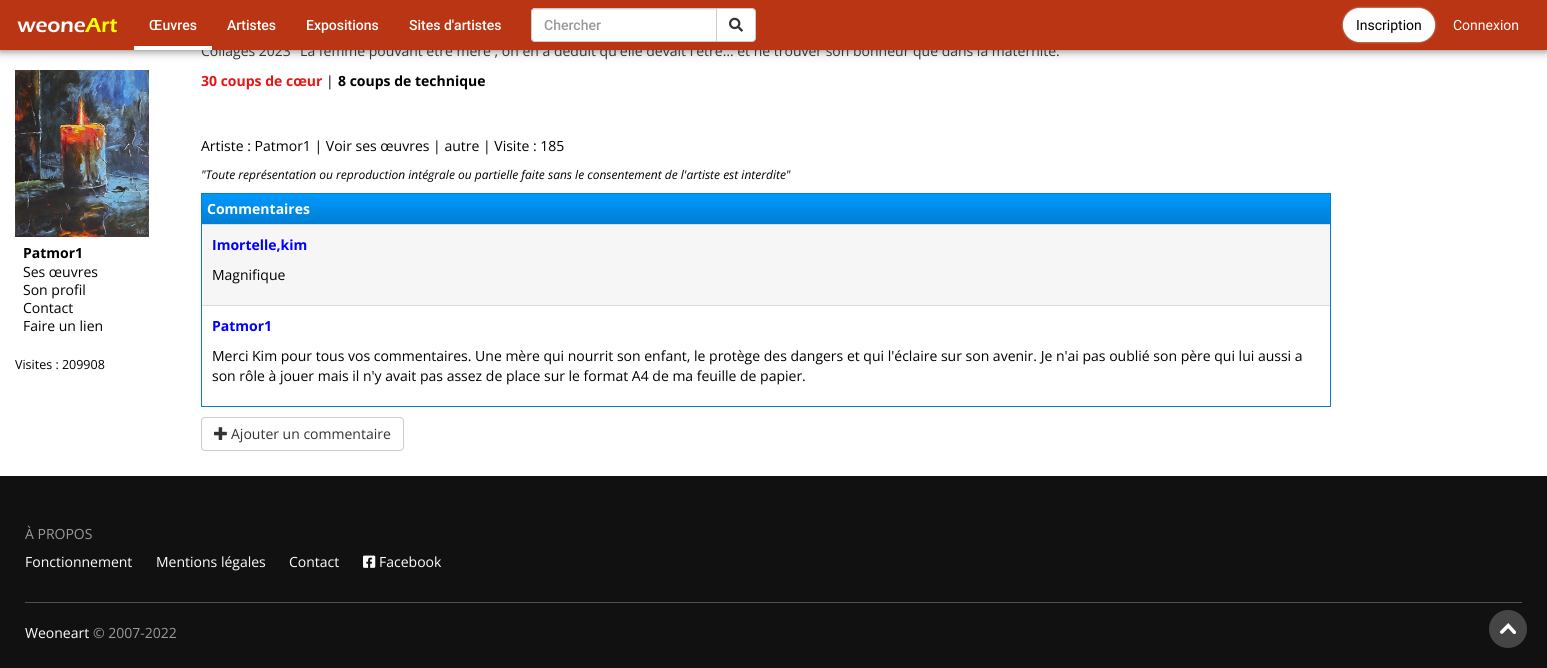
import math
import cairo

surface = cairo.ImageSurface(cairo.FORMAT_RGB24, 1547, 668)
ctx = cairo.Context(surface)
options = cairo.FontOptions()
options.set_hint_metrics(cairo.HINT_METRICS_OFF)
options.set_hint_style(cairo.HINT_STYLE_NONE)
ctx.set_font_options(options)
ctx.set_miter_limit(4)


def round_rect(x, y, w, h, r):
    ctx.new_sub_path()
    for i, (u, v) in enumerate([(x + w - r, y + h - r), (x + r, y + h - r), (x + r, y + r), (x + w - r, y + r)]):
        ctx.arc(u, v, r, i * math.pi / 2, (i + 1) * math.pi / 2)
    ctx.close_path()


def shadow(x, y, w, h, r, blur, alpha):
    ctx.push_group_with_content(cairo.CONTENT_ALPHA)
    ctx.set_operator(cairo.OPERATOR_SOURCE)
    for i in range(15, -16, -2):
        e = blur * i / 6
        if min(w, h) + 2 * e > 0:
            ctx.set_source_rgba(0, 0, 0, alpha * math.erfc((i - 1) / 8.5) / 2)
            round_rect(x - e, y - e, w + 2 * e, h + 2 * e, max(0, min(r + e + blur * .6, min(w, h) / 2 + e)))
            ctx.fill()
    ctx.mask(ctx.pop_group())


def picture(path, x, y, w, h):
    ctx.save()
    ctx.set_source_surface(cairo.ImageSurface.create_from_png(path), x, y)
    ctx.rectangle(x, y, w, h)
    ctx.fill()
    ctx.restore()


ctx.set_source_rgb(1, 1, 1)
ctx.paint()
ctx.set_source_rgb(0.4, 0.4, 0.4)
shadow(0, 0, 1547, 50, 0, 5, 1)
ctx.select_font_face("Open Sans")
ctx.set_font_size(14)
ctx.set_source_rgb(0.2, 0.2, 0.2)
ctx.move_to(201, 56)
ctx.show_text("Collages 2023 \"La femme pouvant être mère , on en a déduit qu'elle devait l'être… et ne trouver son bonheur que dans la maternité.")
ctx.set_source_rgb(0.725, 0.208, 0.075)
ctx.rectangle(0, 0, 1547, 50)
ctx.fill()
picture("img1.png", 17, 18, 100, 15)
ctx.select_font_face("Roboto Medium")
ctx.set_source_rgb(1, 1, 1)
ctx.move_to(149, 30)
ctx.show_text("Œuvres")
ctx.rectangle(134, 46, 78, 4)
ctx.fill()
ctx.move_to(227, 30)
ctx.show_text("Artistes")
ctx.move_to(306, 30)
ctx.show_text("Expositions")
ctx.move_to(409, 30)
ctx.show_text("Sites d'artistes")
ctx.new_path()
ctx.move_to(535, 8)
ctx.line_to(717, 8)
ctx.line_to(717, 42)
ctx.line_to(535, 42)
ctx.curve_to(533, 42, 531, 40, 531, 38)
ctx.line_to(531, 12)
ctx.curve_to(531, 10, 533, 8, 535, 8)
ctx.close_path()
ctx.fill()
ctx.set_source_rgb(0.925, 0.925, 0.925)
ctx.new_path()
ctx.move_to(535, 10)
ctx.line_to(716, 10)
ctx.line_to(716, 9)
ctx.line_to(534, 9)
ctx.curve_to(532, 10, 532, 11, 532, 13)
ctx.curve_to(532, 11, 533, 10, 535, 10)
ctx.close_path()
ctx.fill()
ctx.new_path()
ctx.move_to(535, 8.5)
ctx.line_to(716.5, 8.5)
ctx.line_to(716.5, 41.5)
ctx.line_to(535, 41.5)
ctx.curve_to(533, 41.5, 531.5, 40, 531.5, 38)
ctx.line_to(531.5, 12)
ctx.curve_to(531.5, 10, 533, 8.5, 535, 8.5)
ctx.close_path()
ctx.set_source_rgb(0.8, 0.8, 0.8)
ctx.set_line_width(1)
ctx.stroke()
ctx.set_source_rgb(0.6, 0.6, 0.6)
ctx.move_to(544, 30)
ctx.show_text("Chercher")
ctx.set_source_rgb(1, 1, 1)
ctx.new_path()
ctx.move_to(716.5, 8.5)
ctx.line_to(752, 8.5)
ctx.curve_to(754, 8.5, 755.5, 10, 755.5, 12)
ctx.line_to(755.5, 38)
ctx.curve_to(755.5, 40, 754, 41.5, 752, 41.5)
ctx.line_to(716.5, 41.5)
ctx.close_path()
ctx.fill_preserve()
ctx.set_source_rgb(0.8, 0.8, 0.8)
ctx.stroke()
picture("img2.png", 729, 17, 14, 15)
ctx.set_source_rgb(0.8, 0.8, 0.8)
shadow(1343, 8, 92, 34, 17, 1, 1)
ctx.set_source_rgb(1, 1, 1)
round_rect(1343.5, 8.5, 91, 33, 16.5)
ctx.fill_preserve()
ctx.stroke()
ctx.select_font_face("Roboto")
ctx.set_source_rgb(0, 0, 0)
ctx.move_to(1356, 30)
ctx.show_text("Inscription")
ctx.set_source_rgb(1, 1, 1)
ctx.move_to(1453, 30)
ctx.show_text("Connexion")
picture("img3.png", 15, 70, 134, 167)
ctx.select_font_face("Open Sans", cairo.FONT_SLANT_NORMAL, cairo.FONT_WEIGHT_BOLD)
ctx.set_source_rgb(0, 0, 0)
ctx.move_to(23, 258)
ctx.show_text("Patmor1")
ctx.select_font_face("Open Sans")
ctx.move_to(23, 277)
ctx.show_text("Ses œuvres")
ctx.move_to(23, 295)
ctx.show_text("Son profil")
ctx.move_to(23, 313)
ctx.show_text("Contact")
ctx.move_to(23, 331)
ctx.show_text("Faire un lien")
ctx.set_font_size(12.5)
ctx.move_to(15, 369)
ctx.show_text("Visites : 209908")
ctx.select_font_face("Open Sans", cairo.FONT_SLANT_NORMAL, cairo.FONT_WEIGHT_BOLD)
ctx.set_font_size(14)
ctx.set_source_rgb(0.902, 0.086, 0.086)
ctx.move_to(201, 86)
ctx.show_text("30 coups de cœur")
ctx.select_font_face("Open Sans")
ctx.set_source_rgb(0, 0, 0)
ctx.move_to(326, 86)
ctx.show_text("|")
ctx.select_font_face("Open Sans", cairo.FONT_SLANT_NORMAL, cairo.FONT_WEIGHT_BOLD)
ctx.move_to(338, 86)
ctx.show_text("8 coups de technique")
ctx.select_font_face("Open Sans")
ctx.move_to(201, 151)
ctx.show_text("Artiste : Patmor1 | Voir ses œuvres | autre | Visite : 185")
ctx.select_font_face("Open Sans", cairo.FONT_SLANT_ITALIC)
ctx.set_font_size(12)
ctx.move_to(201, 179)
ctx.show_text("\"Toute représentation ou reproduction intégrale ou partielle faite sans le consentement de l'artiste est interdite\"")
ctx.rectangle(201.5, 193.5, 1129, 213)
ctx.set_source_rgb(0, 0.494, 0.824)
ctx.stroke()
gradient = cairo.LinearGradient(766, 194, 766, 224)
gradient.add_color_stop_rgba(0, 0, 0.6, 1, 1)
gradient.add_color_stop_rgba(1, 0, 0.494, 0.824, 1)
ctx.set_source(gradient)
ctx.rectangle(202, 194, 1128, 30)
ctx.fill()
ctx.select_font_face("Open Sans", cairo.FONT_SLANT_NORMAL, cairo.FONT_WEIGHT_BOLD)
ctx.set_font_size(14)
ctx.set_source_rgb(1, 1, 1)
ctx.move_to(207, 214)
ctx.show_text("Commentaires")
ctx.set_source_rgb(0.961, 0.961, 0.961)
ctx.rectangle(202, 225, 1128, 80)
ctx.fill()
ctx.set_source_rgb(0.867, 0.867, 0.867)
ctx.rectangle(202, 224, 1128, 1)
ctx.fill()
ctx.set_source_rgb(0, 0, 1)
ctx.move_to(212, 250)
ctx.show_text("Imortelle,kim")
ctx.select_font_face("Open Sans")
ctx.set_source_rgb(0, 0, 0)
ctx.move_to(212, 280)
ctx.show_text("Magnifique")
ctx.set_source_rgb(0.867, 0.867, 0.867)
ctx.rectangle(202, 305, 1128, 1)
ctx.fill()
ctx.select_font_face("Open Sans", cairo.FONT_SLANT_NORMAL, cairo.FONT_WEIGHT_BOLD)
ctx.set_source_rgb(0, 0, 1)
ctx.move_to(212, 331)
ctx.show_text("Patmor1")
ctx.select_font_face("Open Sans")
ctx.set_source_rgb(0, 0, 0)
ctx.move_to(212, 361)
ctx.show_text("Merci Kim pour tous vos commentaires. Une mère qui nourrit son enfant, le protège des dangers et qui l'éclaire sur son avenir. Je n'ai pas oublié son père qui lui aussi a")
ctx.move_to(212, 381)
ctx.show_text("son rôle à jouer mais il n'y avait pas assez de place sur le format A4 de ma feuille de papier.")
round_rect(201.5, 417.5, 202, 33, 3.5)
ctx.set_source_rgb(0.8, 0.8, 0.8)
ctx.stroke()
picture("img4.png", 214, 427, 13, 13)
ctx.set_source_rgb(0.2, 0.2, 0.2)
ctx.move_to(231, 439)
ctx.show_text("Ajouter un commentaire")
ctx.set_source_rgb(0.067, 0.067, 0.067)
ctx.rectangle(0, 476, 1547, 192)
ctx.fill()
ctx.set_source_rgb(0.6, 0.6, 0.6)
ctx.move_to(25, 539)
ctx.show_text("À PROPOS")
ctx.set_source_rgb(1, 1, 1)
ctx.move_to(25, 567)
ctx.show_text("Fonctionnement")
ctx.move_to(156, 567)
ctx.show_text("Mentions légales")
ctx.move_to(289, 567)
ctx.show_text("Contact")
picture("img5.png", 363, 555, 13, 13)
ctx.move_to(379, 567)
ctx.show_text("Facebook")
ctx.set_source_rgb(0.318, 0.318, 0.318)
ctx.rectangle(25, 602, 1497, 1)
ctx.fill()
ctx.set_source_rgb(1, 1, 1)
ctx.move_to(25, 638)
ctx.show_text("Weoneart")
ctx.set_source_rgb(0.6, 0.6, 0.6)
ctx.move_to(93, 638)
ctx.show_text("© 2007-2022")
picture("img6.png", 1489, 610, 38, 38)
surface.write_to_png("page.png")
